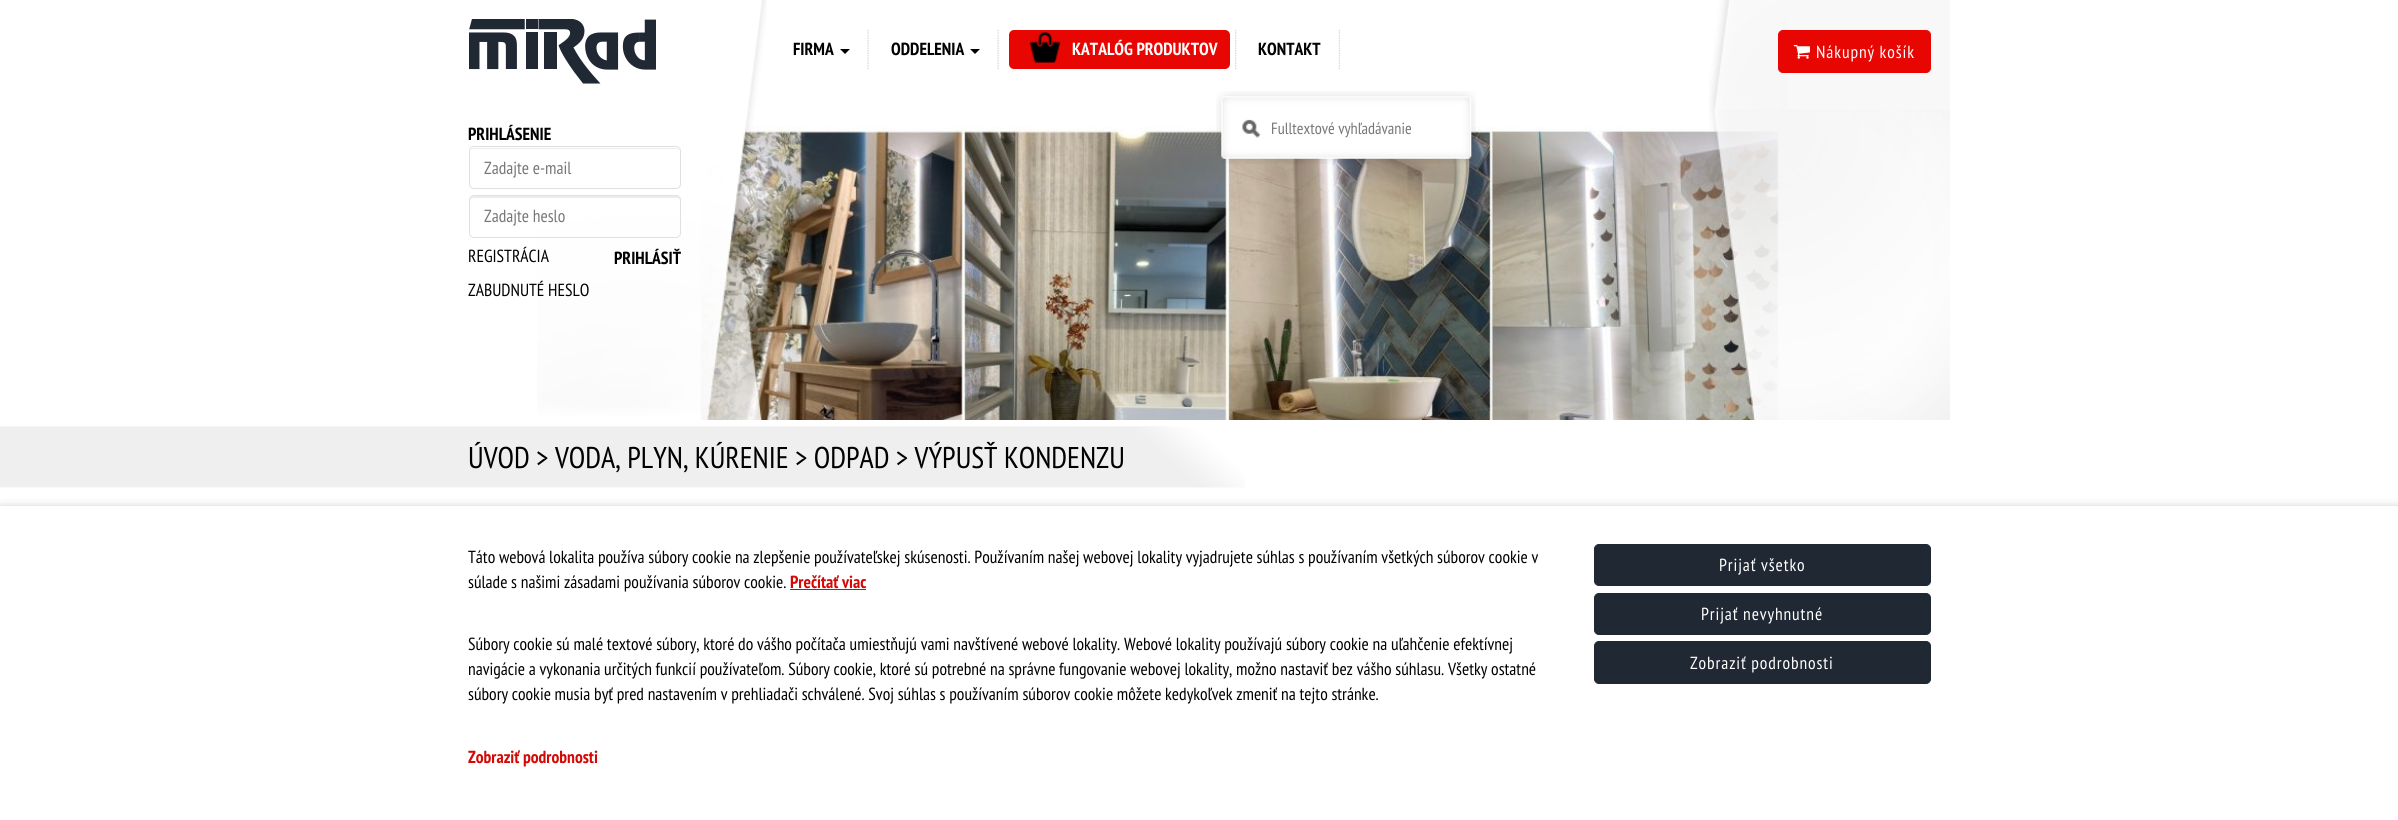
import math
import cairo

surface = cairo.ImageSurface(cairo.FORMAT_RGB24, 2398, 820)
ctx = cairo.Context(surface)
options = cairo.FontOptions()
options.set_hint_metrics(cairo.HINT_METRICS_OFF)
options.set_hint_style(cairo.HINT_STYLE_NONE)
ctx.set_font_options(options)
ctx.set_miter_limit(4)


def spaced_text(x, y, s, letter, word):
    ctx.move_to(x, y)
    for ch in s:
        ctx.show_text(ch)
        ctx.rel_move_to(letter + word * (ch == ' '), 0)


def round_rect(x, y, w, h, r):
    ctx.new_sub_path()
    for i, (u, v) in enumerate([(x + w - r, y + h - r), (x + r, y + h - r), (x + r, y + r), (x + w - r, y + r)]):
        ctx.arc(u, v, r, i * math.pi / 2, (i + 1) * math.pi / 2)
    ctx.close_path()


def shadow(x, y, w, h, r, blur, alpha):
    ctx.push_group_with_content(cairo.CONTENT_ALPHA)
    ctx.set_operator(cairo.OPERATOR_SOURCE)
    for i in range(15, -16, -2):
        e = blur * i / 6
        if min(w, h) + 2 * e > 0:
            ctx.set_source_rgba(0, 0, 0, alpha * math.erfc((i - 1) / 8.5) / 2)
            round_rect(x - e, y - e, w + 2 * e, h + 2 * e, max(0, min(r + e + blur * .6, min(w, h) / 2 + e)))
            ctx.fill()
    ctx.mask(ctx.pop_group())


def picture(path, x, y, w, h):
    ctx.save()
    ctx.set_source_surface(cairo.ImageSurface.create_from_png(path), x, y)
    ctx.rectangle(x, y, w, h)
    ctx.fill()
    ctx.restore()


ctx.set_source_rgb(1, 1, 1)
ctx.paint()
picture("img1.png", 867, 30, 2, 39)
ctx.select_font_face("PT Sans Narrow", cairo.FONT_SLANT_NORMAL, cairo.FONT_WEIGHT_BOLD)
ctx.set_font_size(17.5)
ctx.set_source_rgb(0, 0, 0)
ctx.move_to(793, 55)
ctx.show_text("FIRMA")
ctx.new_path()
ctx.move_to(840, 49)
ctx.line_to(850, 49)
ctx.line_to(845, 54)
ctx.close_path()
ctx.fill()
picture("img1.png", 997, 30, 2, 39)
ctx.move_to(891, 55)
ctx.show_text("ODDELENIA")
ctx.new_path()
ctx.move_to(970, 49)
ctx.line_to(980, 49)
ctx.line_to(975, 54)
ctx.close_path()
ctx.fill()
picture("img2.png", 1235, 30, 2, 39)
ctx.set_source_rgb(0.91, 0.024, 0.012)
round_rect(1009, 30, 221, 39, 5)
ctx.fill()
picture("img3.png", 1029, 32, 32, 31)
ctx.set_source_rgb(1, 1, 1)
ctx.move_to(1072, 55)
ctx.show_text("KATALÓG PRODUKTOV")
picture("img4.png", 1338, 30, 2, 39)
ctx.set_source_rgb(0, 0, 0)
ctx.move_to(1258, 55)
ctx.show_text("KONTAKT")
picture("img10.png", 696, 126, 1086, 294)
picture("img5.png", 1709, 0, 241, 420)
ctx.set_source_rgb(0.91, 0.024, 0.012)
round_rect(1778.5, 30.5, 152, 42, 4.5)
ctx.fill_preserve()
ctx.set_line_width(1)
ctx.stroke()
picture("img6.png", 1793, 45, 17, 14)
ctx.select_font_face("PT Sans Narrow")
ctx.set_source_rgb(1, 1, 1)
spaced_text(1816, 58, "Nákupný košík", 0.9, 0)
picture("img7.png", 537, 0, 230, 420)
picture("img8.png", 469, 19, 187, 65)
ctx.select_font_face("PT Sans Narrow", cairo.FONT_SLANT_NORMAL, cairo.FONT_WEIGHT_BOLD)
ctx.set_source_rgb(0, 0, 0)
ctx.move_to(468, 140)
ctx.show_text("PRIHLÁSENIE")
ctx.set_source_rgb(0.925, 0.925, 0.925)
ctx.new_path()
ctx.move_to(474, 149)
ctx.line_to(676, 149)
ctx.curve_to(678, 149, 680, 150, 680, 152)
ctx.curve_to(680, 150, 678, 148, 676, 148)
ctx.line_to(474, 148)
ctx.curve_to(472, 148, 470, 150, 470, 152)
ctx.curve_to(470, 150, 472, 149, 474, 149)
ctx.close_path()
ctx.fill()
round_rect(469.5, 146.5, 211, 42, 4.5)
ctx.set_source_rgb(0.878, 0.878, 0.878)
ctx.stroke()
ctx.select_font_face("PT Sans Narrow")
ctx.set_source_rgb(0.467, 0.467, 0.467)
ctx.move_to(484, 174)
ctx.show_text("Zadajte e-mail")
ctx.set_source_rgb(0.925, 0.925, 0.925)
ctx.new_path()
ctx.move_to(474, 198)
ctx.line_to(676, 198)
ctx.curve_to(678, 198, 680, 199, 680, 201)
ctx.line_to(680, 200)
ctx.curve_to(680, 198, 678, 196, 676, 196)
ctx.line_to(474, 196)
ctx.curve_to(472, 196, 470, 198, 470, 200)
ctx.line_to(470, 201)
ctx.curve_to(470, 199, 472, 198, 474, 198)
ctx.close_path()
ctx.fill()
round_rect(469.5, 195.5, 211, 42, 4.5)
ctx.set_source_rgb(0.878, 0.878, 0.878)
ctx.stroke()
ctx.set_source_rgb(0.467, 0.467, 0.467)
ctx.move_to(484, 222)
ctx.show_text("Zadajte heslo")
ctx.set_source_rgb(0, 0, 0)
ctx.move_to(468, 262)
ctx.show_text("REGISTRÁCIA")
ctx.select_font_face("PT Sans Narrow", cairo.FONT_SLANT_NORMAL, cairo.FONT_WEIGHT_BOLD)
ctx.move_to(614, 264)
ctx.show_text("PRIHLÁSIŤ")
ctx.select_font_face("PT Sans Narrow")
ctx.move_to(468, 296)
ctx.show_text("ZABUDNUTÉ HESLO")
picture("img9.png", 1216, 91, 260, 73)
ctx.set_font_size(16.25)
ctx.set_source_rgb(0.467, 0.467, 0.467)
ctx.move_to(1271, 134)
ctx.show_text("Fulltextové vyhľadávanie")
picture("img11.png", 0, 426, 1245, 62)
ctx.set_font_size(30)
ctx.set_source_rgb(0, 0, 0)
ctx.move_to(468, 468)
ctx.show_text("ÚVOD > VODA, PLYN, KÚRENIE > ODPAD > VÝPUSŤ KONDENZU")
ctx.set_source_rgb(0, 0, 0)
shadow(1, 509, 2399, 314, 0, 5, 0.35)
ctx.set_source_rgb(1, 1, 1)
ctx.rectangle(0, 506, 2398, 314)
ctx.fill()
ctx.set_font_size(17.5)
ctx.set_source_rgb(0, 0, 0)
ctx.move_to(468, 563)
ctx.show_text("Táto webová lokalita používa súbory cookie na zlepšenie používateľskej skúsenosti. Používaním našej webovej lokality vyjadrujete súhlas s používaním všetkých súborov cookie v")
ctx.move_to(468, 588)
ctx.show_text("súlade s našimi zásadami používania súborov cookie.")
ctx.select_font_face("PT Sans Narrow", cairo.FONT_SLANT_NORMAL, cairo.FONT_WEIGHT_BOLD)
ctx.set_source_rgb(0.831, 0.039, 0.027)
ctx.move_to(790, 588)
ctx.show_text("Prečítať viac")
ctx.rectangle(790, 589, 76, 1)
ctx.fill()
ctx.select_font_face("PT Sans Narrow")
ctx.set_source_rgb(0, 0, 0)
ctx.move_to(468, 650)
ctx.show_text("Súbory cookie sú malé textové súbory, ktoré do vášho počítača umiestňujú vami navštívené webové lokality. Webové lokality používajú súbory cookie na uľahčenie efektívnej")
ctx.move_to(468, 675)
ctx.show_text("navigácie a vykonania určitých funkcií používateľom. Súbory cookie, ktoré sú potrebné na správne fungovanie webovej lokality, možno nastaviť bez vášho súhlasu. Všetky ostatné")
ctx.move_to(468, 700)
ctx.show_text("súbory cookie musia byť pred nastavením v prehliadači schválené. Svoj súhlas s používaním súborov cookie môžete kedykoľvek zmeniť na tejto stránke.")
ctx.select_font_face("PT Sans Narrow", cairo.FONT_SLANT_NORMAL, cairo.FONT_WEIGHT_BOLD)
ctx.set_source_rgb(0.831, 0.039, 0.027)
ctx.move_to(468, 763)
ctx.show_text("Zobraziť podrobnosti")
ctx.set_source_rgb(0.125, 0.157, 0.204)
round_rect(1594.5, 544.5, 336, 41, 4.5)
ctx.fill_preserve()
ctx.stroke()
ctx.select_font_face("PT Sans Narrow")
ctx.set_source_rgb(1, 1, 1)
spaced_text(1719, 571, "Prijať všetko", 0.9, 0)
ctx.set_source_rgb(0.125, 0.157, 0.204)
round_rect(1594.5, 593.5, 336, 41, 4.5)
ctx.fill_preserve()
ctx.stroke()
ctx.set_source_rgb(1, 1, 1)
spaced_text(1701, 620, "Prijať nevyhnutné", 0.9, 0)
ctx.set_source_rgb(0.125, 0.157, 0.204)
round_rect(1594.5, 641.5, 336, 42, 4.5)
ctx.fill_preserve()
ctx.stroke()
ctx.set_source_rgb(1, 1, 1)
spaced_text(1690, 669, "Zobraziť podrobnosti", 0.9, 0)
surface.write_to_png("page.png")
